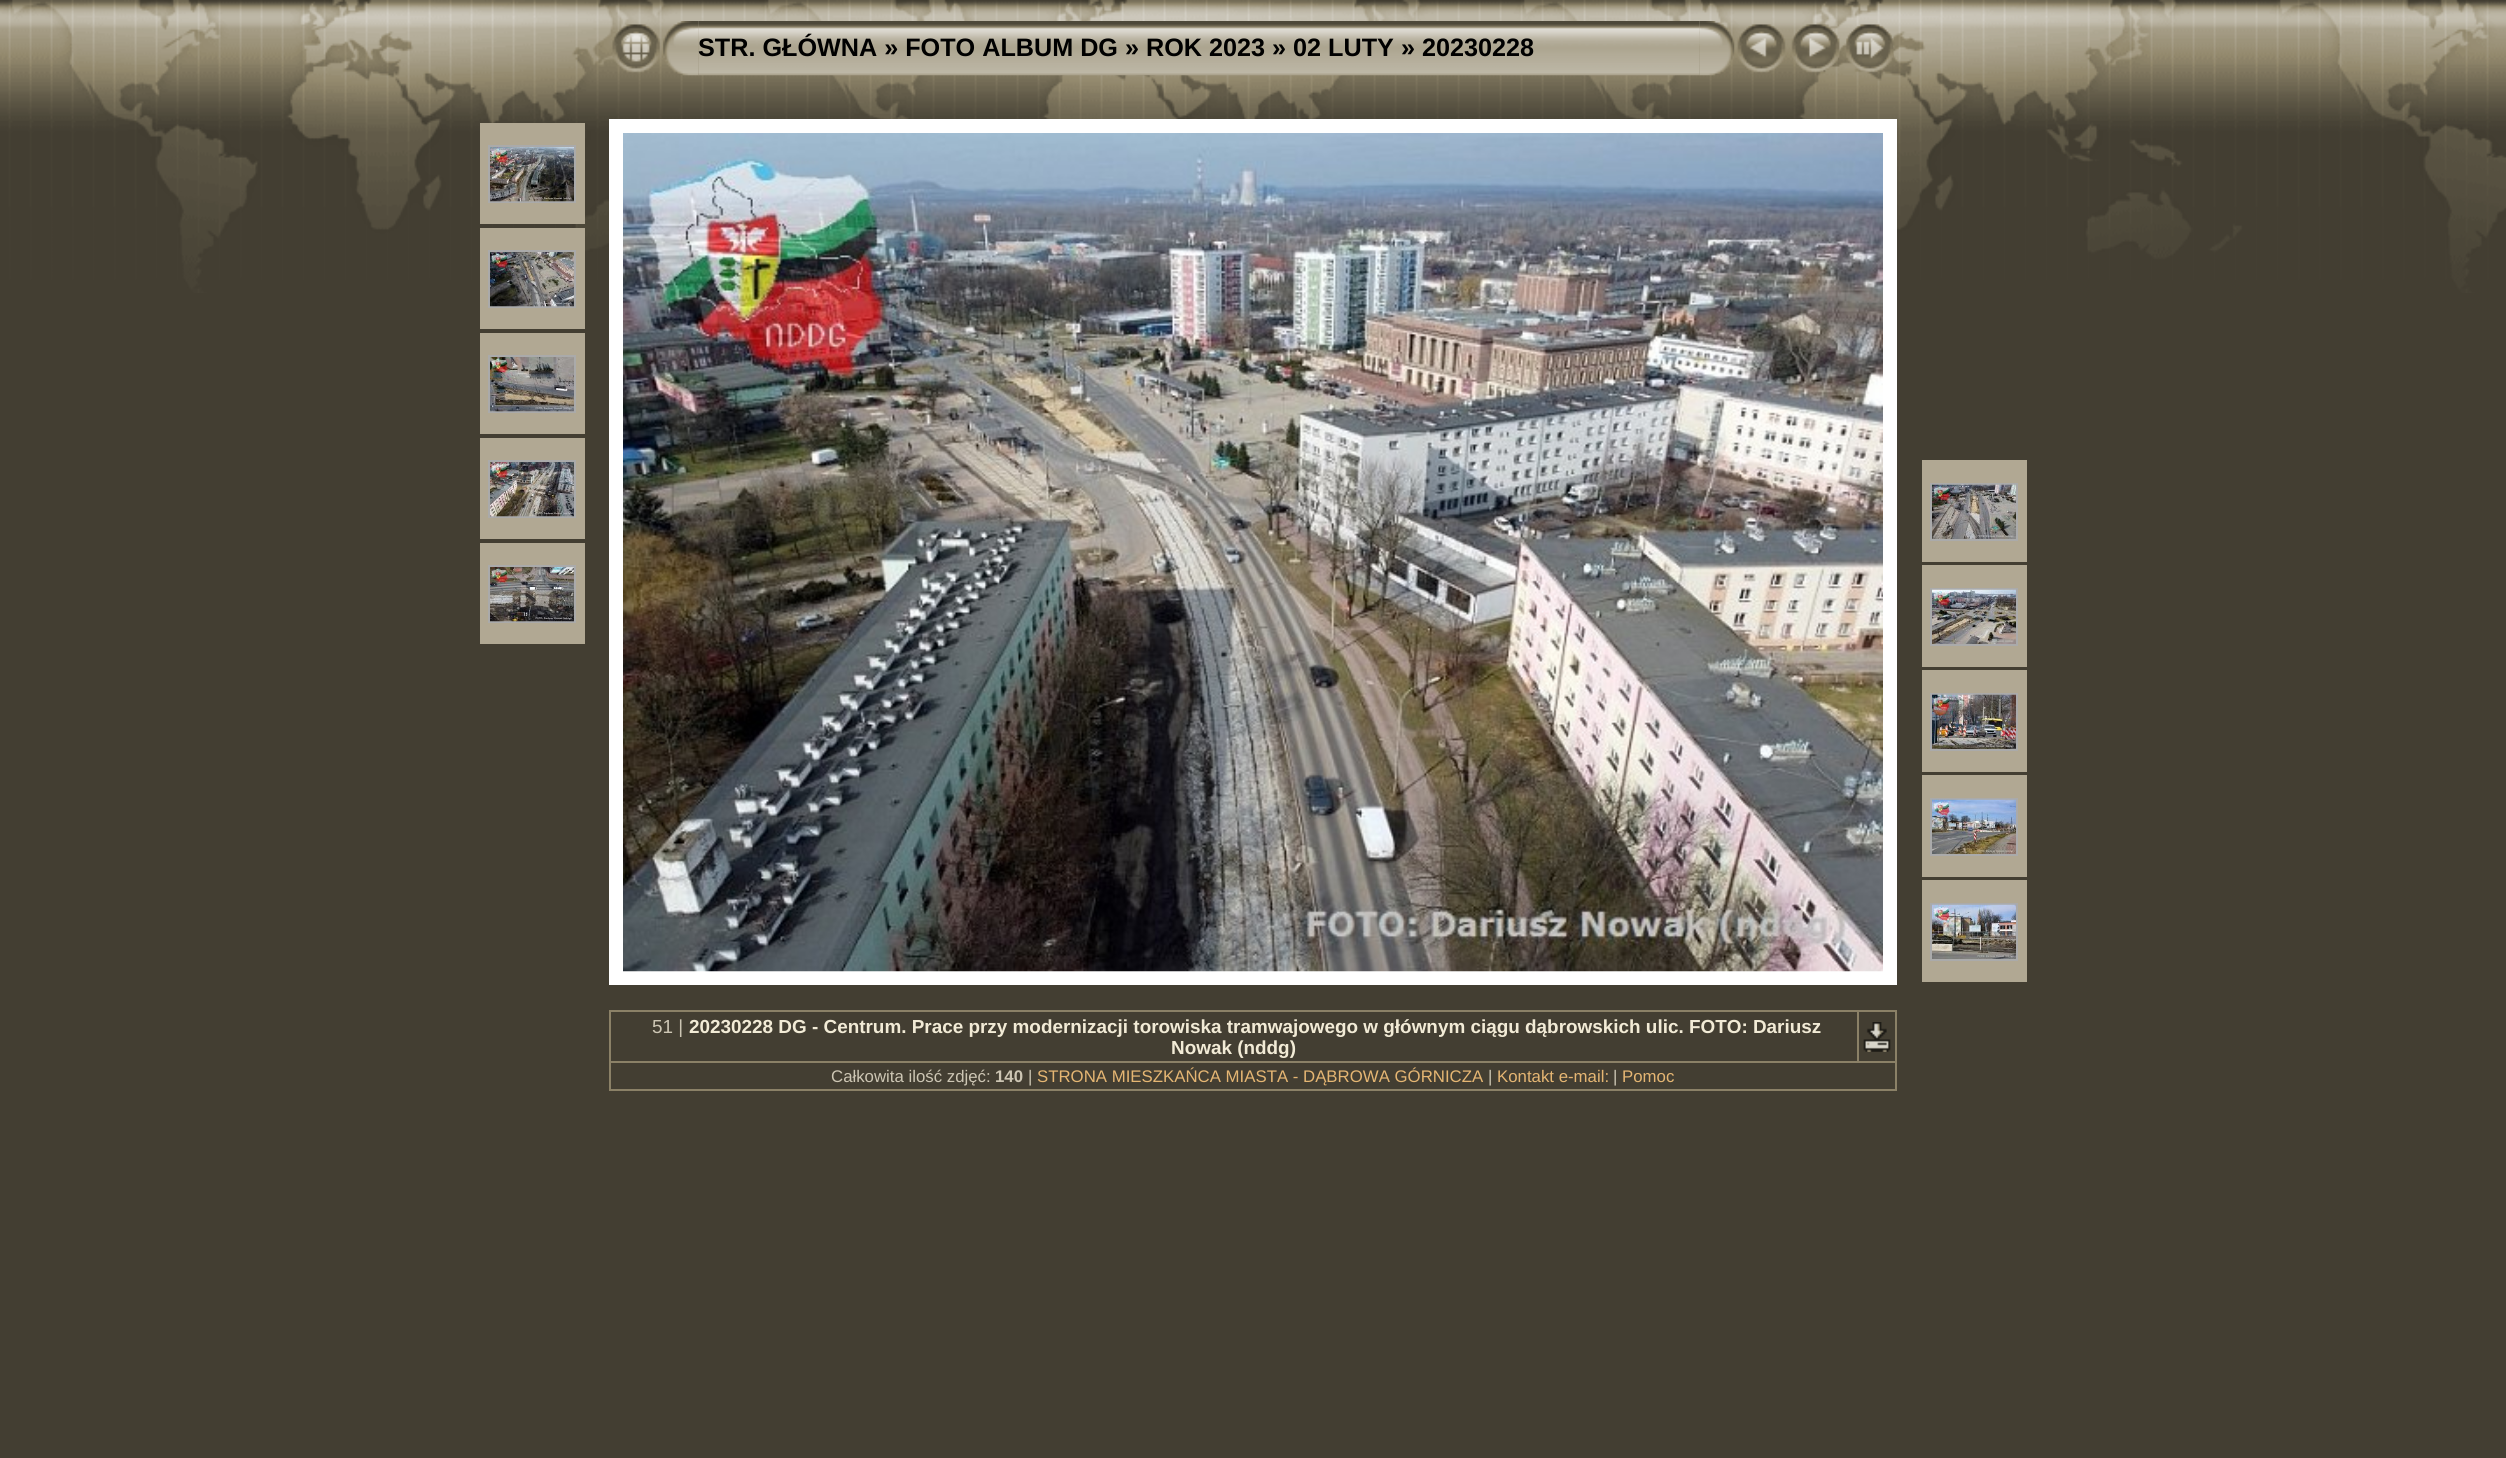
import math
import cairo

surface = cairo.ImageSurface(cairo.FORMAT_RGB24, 2506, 1458)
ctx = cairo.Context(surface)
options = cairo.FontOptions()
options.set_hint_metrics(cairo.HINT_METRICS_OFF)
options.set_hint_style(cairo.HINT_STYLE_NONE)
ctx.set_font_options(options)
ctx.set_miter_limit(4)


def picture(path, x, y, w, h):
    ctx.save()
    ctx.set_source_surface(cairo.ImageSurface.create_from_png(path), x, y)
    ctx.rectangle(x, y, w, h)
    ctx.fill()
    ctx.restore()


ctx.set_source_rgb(0.263, 0.243, 0.196)
ctx.paint()
picture("img1.png", 0, 0, 2506, 293)
picture("img2.png", 612, 24, 49, 49)
picture("img4.png", 698, 21, 1002, 55)
picture("img3.png", 663, 21, 36, 55)
ctx.select_font_face("Liberation Sans", cairo.FONT_SLANT_NORMAL, cairo.FONT_WEIGHT_BOLD)
ctx.set_font_size(25.2)
ctx.set_source_rgb(0, 0, 0)
ctx.move_to(698, 56)
ctx.show_text("STR. GŁÓWNA » FOTO ALBUM DG » ROK 2023 » 02 LUTY » 20230228")
picture("img5.png", 1699, 21, 36, 55)
picture("img6.png", 1737, 24, 49, 49)
picture("img7.png", 1791, 24, 49, 49)
picture("img8.png", 1846, 24, 48, 49)
ctx.set_source_rgb(0.694, 0.659, 0.576)
ctx.rectangle(480, 123, 105, 101)
ctx.fill()
ctx.rectangle(489, 146, 86, 56)
ctx.set_source_rgb(0.667, 0.667, 0.667)
ctx.stroke()
picture("img9.png", 490, 147, 84, 55)
ctx.set_source_rgb(0.694, 0.659, 0.576)
ctx.rectangle(480, 228, 105, 101)
ctx.fill()
ctx.rectangle(489, 251, 86, 56)
ctx.set_source_rgb(0.667, 0.667, 0.667)
ctx.stroke()
picture("img10.png", 490, 252, 84, 55)
ctx.set_source_rgb(0.694, 0.659, 0.576)
ctx.rectangle(480, 333, 105, 101)
ctx.fill()
ctx.rectangle(489, 356, 86, 56)
ctx.set_source_rgb(0.667, 0.667, 0.667)
ctx.stroke()
picture("img11.png", 490, 357, 84, 55)
ctx.set_source_rgb(0.694, 0.659, 0.576)
ctx.rectangle(480, 438, 105, 101)
ctx.fill()
ctx.rectangle(489, 461, 86, 56)
ctx.set_source_rgb(0.667, 0.667, 0.667)
ctx.stroke()
picture("img12.png", 490, 462, 84, 55)
ctx.set_source_rgb(0.694, 0.659, 0.576)
ctx.rectangle(480, 543, 105, 101)
ctx.fill()
ctx.rectangle(489, 566, 86, 56)
ctx.set_source_rgb(0.667, 0.667, 0.667)
ctx.stroke()
picture("img13.png", 490, 567, 84, 55)
ctx.rectangle(616, 126, 1274, 852)
ctx.set_source_rgb(1, 1, 1)
ctx.set_line_width(14)
ctx.stroke()
picture("img14.png", 623, 133, 1260, 839)
ctx.set_source_rgb(0.694, 0.659, 0.576)
ctx.rectangle(1922, 460, 105, 102)
ctx.fill()
ctx.rectangle(1931, 484, 86, 56)
ctx.set_source_rgb(0.667, 0.667, 0.667)
ctx.set_line_width(2)
ctx.stroke()
picture("img15.png", 1932, 484, 84, 55)
ctx.set_source_rgb(0.694, 0.659, 0.576)
ctx.rectangle(1922, 565, 105, 102)
ctx.fill()
ctx.rectangle(1931, 589, 86, 56)
ctx.set_source_rgb(0.667, 0.667, 0.667)
ctx.stroke()
picture("img16.png", 1932, 589, 84, 55)
ctx.set_source_rgb(0.694, 0.659, 0.576)
ctx.rectangle(1922, 670, 105, 102)
ctx.fill()
ctx.rectangle(1931, 694, 86, 56)
ctx.set_source_rgb(0.667, 0.667, 0.667)
ctx.stroke()
picture("img17.png", 1932, 694, 84, 55)
ctx.set_source_rgb(0.694, 0.659, 0.576)
ctx.rectangle(1922, 775, 105, 102)
ctx.fill()
ctx.rectangle(1931, 799, 86, 56)
ctx.set_source_rgb(0.667, 0.667, 0.667)
ctx.stroke()
picture("img18.png", 1932, 799, 84, 55)
ctx.set_source_rgb(0.694, 0.659, 0.576)
ctx.rectangle(1922, 880, 105, 102)
ctx.fill()
ctx.rectangle(1931, 904, 86, 56)
ctx.set_source_rgb(0.667, 0.667, 0.667)
ctx.stroke()
picture("img19.png", 1932, 904, 84, 55)
ctx.set_source_rgb(0.545, 0.506, 0.404)
ctx.rectangle(1857, 1010, 40, 2)
ctx.fill()
ctx.rectangle(609, 1061, 1288, 2)
ctx.fill()
ctx.rectangle(1857, 1010, 2, 52)
ctx.fill()
ctx.rectangle(609, 1010, 1250, 2)
ctx.fill()
ctx.rectangle(1895, 1061, 2, 29)
ctx.fill()
ctx.rectangle(609, 1089, 1288, 2)
ctx.fill()
ctx.rectangle(609, 1061, 2, 29)
ctx.fill()
ctx.rectangle(609, 1010, 2, 52)
ctx.fill()
ctx.select_font_face("Liberation Sans")
ctx.set_font_size(18.9)
ctx.set_source_rgb(0.804, 0.776, 0.706)
ctx.move_to(652, 1033)
ctx.show_text("51 |")
ctx.select_font_face("Liberation Sans", cairo.FONT_SLANT_NORMAL, cairo.FONT_WEIGHT_BOLD)
ctx.set_source_rgb(0.949, 0.918, 0.839)
ctx.move_to(689, 1033)
ctx.show_text("20230228 DG - Centrum. Prace przy modernizacji torowiska tramwajowego w głównym ciągu dąbrowskich ulic. FOTO: Dariusz")
ctx.move_to(1171, 1054)
ctx.show_text("Nowak (nddg)")
ctx.set_source_rgb(0.545, 0.506, 0.404)
ctx.rectangle(1895, 1010, 2, 52)
ctx.fill()
picture("img20.png", 1863, 1022, 28, 30)
ctx.select_font_face("Liberation Sans")
ctx.set_font_size(16.8)
ctx.set_source_rgb(0.804, 0.776, 0.706)
ctx.move_to(831, 1082)
ctx.show_text("Całkowita ilość zdjęć:")
ctx.select_font_face("Liberation Sans", cairo.FONT_SLANT_NORMAL, cairo.FONT_WEIGHT_BOLD)
ctx.move_to(995, 1082)
ctx.show_text("140")
ctx.select_font_face("Liberation Sans")
ctx.move_to(1028, 1082)
ctx.show_text("|")
ctx.set_source_rgb(0.898, 0.714, 0.451)
ctx.move_to(1037, 1082)
ctx.show_text("STRONA MIESZKAŃCA MIASTA - DĄBROWA GÓRNICZA")
ctx.set_source_rgb(0.804, 0.776, 0.706)
ctx.move_to(1488, 1082)
ctx.show_text("|")
ctx.set_source_rgb(0.898, 0.714, 0.451)
ctx.move_to(1497, 1082)
ctx.show_text("Kontakt e-mail:")
ctx.set_source_rgb(0.804, 0.776, 0.706)
ctx.move_to(1613, 1082)
ctx.show_text("|")
ctx.set_source_rgb(0.898, 0.714, 0.451)
ctx.move_to(1622, 1082)
ctx.show_text("Pomoc")
surface.write_to_png("page.png")
